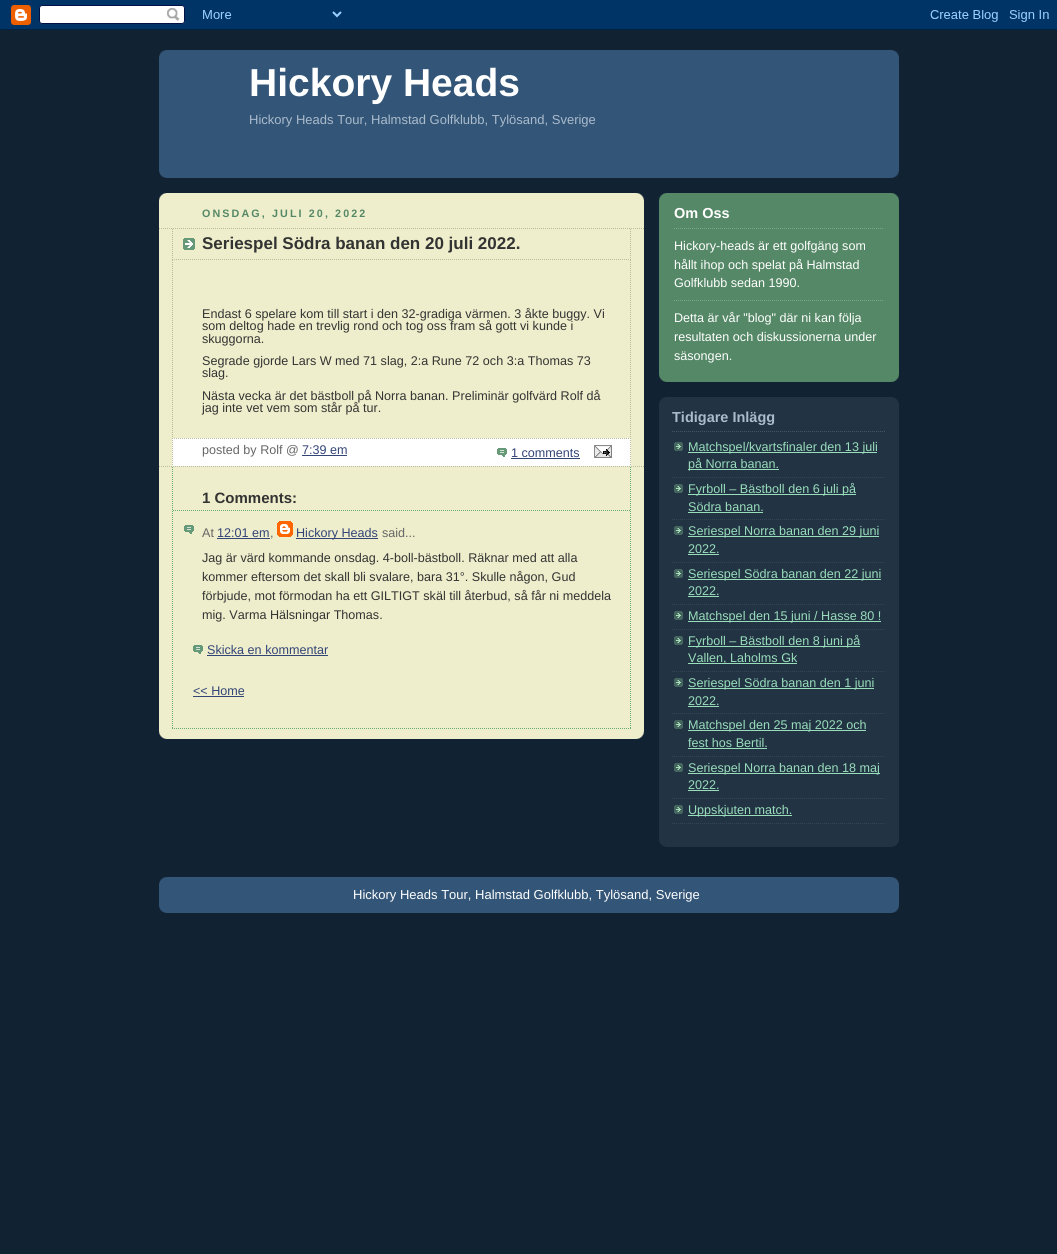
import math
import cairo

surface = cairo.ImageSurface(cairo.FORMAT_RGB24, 1057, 1254)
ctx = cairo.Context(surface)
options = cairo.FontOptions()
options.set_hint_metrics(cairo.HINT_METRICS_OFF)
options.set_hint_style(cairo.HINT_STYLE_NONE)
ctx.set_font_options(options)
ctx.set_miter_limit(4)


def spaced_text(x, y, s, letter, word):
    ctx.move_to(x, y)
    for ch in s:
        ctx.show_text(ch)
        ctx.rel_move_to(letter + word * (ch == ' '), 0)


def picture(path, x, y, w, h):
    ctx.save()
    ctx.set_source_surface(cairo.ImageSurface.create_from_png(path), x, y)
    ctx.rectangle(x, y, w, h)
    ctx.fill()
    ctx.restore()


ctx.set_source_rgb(0.067, 0.133, 0.2)
ctx.paint()
picture("img1.png", 0, 0, 1057, 30)
ctx.set_source_rgb(0.2, 0.333, 0.467)
ctx.rectangle(159, 50, 740, 128)
ctx.fill()
picture("img2.png", 159, 171, 740, 7)
picture("img3.png", 159, 50, 740, 7)
ctx.select_font_face("Liberation Sans", cairo.FONT_SLANT_NORMAL, cairo.FONT_WEIGHT_BOLD)
ctx.set_font_size(39)
ctx.set_source_rgb(1, 1, 1)
ctx.move_to(249, 96)
ctx.show_text("Hickory Heads")
ctx.select_font_face("Liberation Sans")
ctx.set_font_size(13)
ctx.set_source_rgb(0.667, 0.733, 0.8)
ctx.move_to(249, 124)
ctx.show_text("Hickory Heads Tour, Halmstad Golfklubb, Tylösand, Sverige")
ctx.set_source_rgb(0.933, 0.933, 0.8)
ctx.rectangle(159, 193, 485, 546)
ctx.fill()
picture("img4.png", 159, 731, 485, 8)
picture("img5.png", 159, 193, 485, 8)
ctx.select_font_face("Liberation Sans", cairo.FONT_SLANT_NORMAL, cairo.FONT_WEIGHT_BOLD)
ctx.set_font_size(10.75)
ctx.set_source_rgb(0.333, 0.533, 0.4)
spaced_text(202, 217, "ONSDAG, JULI 20, 2022", 2.1, 0)
ctx.new_path()
ctx.move_to(159, 228.5)
ctx.line_to(644, 228.5)
ctx.set_source_rgb(0.733, 0.733, 0.6)
ctx.set_line_width(1)
ctx.set_dash([1, 1])
ctx.stroke()
ctx.new_path()
ctx.move_to(159, 466.5)
ctx.line_to(644, 466.5)
ctx.stroke()
picture("img6.png", 183, 238, 12, 12)
ctx.new_path()
ctx.move_to(630.5, 229)
ctx.line_to(630.5, 260)
ctx.stroke()
ctx.new_path()
ctx.move_to(172, 259.5)
ctx.line_to(631, 259.5)
ctx.stroke()
ctx.new_path()
ctx.move_to(172.5, 229)
ctx.line_to(172.5, 260)
ctx.stroke()
ctx.set_font_size(17)
ctx.set_source_rgb(0.2, 0.2, 0.2)
ctx.move_to(202, 249)
ctx.show_text("Seriespel Södra banan den 20 juli 2022.")
ctx.new_path()
ctx.move_to(630.5, 260)
ctx.line_to(630.5, 438)
ctx.set_source_rgb(0.733, 0.733, 0.6)
ctx.stroke()
ctx.new_path()
ctx.move_to(172.5, 260)
ctx.line_to(172.5, 438)
ctx.stroke()
ctx.select_font_face("Liberation Sans")
ctx.set_font_size(12.6)
ctx.set_source_rgb(0.2, 0.2, 0.2)
ctx.move_to(202, 318)
ctx.show_text("Endast 6 spelare kom till start i den 32-gradiga värmen. 3 åkte buggy. Vi")
ctx.move_to(202, 330)
ctx.show_text("som deltog hade en trevlig rond och tog oss fram så gott vi kunde i")
ctx.move_to(202, 343)
ctx.show_text("skuggorna.")
ctx.move_to(202, 365)
ctx.show_text("Segrade gjorde Lars W med 71 slag, 2:a Rune 72 och 3:a Thomas 73")
ctx.move_to(202, 377)
ctx.show_text("slag.")
ctx.move_to(202, 400)
ctx.show_text("Nästa vecka är det bästboll på Norra banan. Preliminär golfvärd Rolf då")
ctx.move_to(202, 412)
ctx.show_text("jag inte vet vem som står på tur.")
ctx.set_source_rgb(1, 1, 1)
ctx.rectangle(172, 438, 459, 28)
ctx.fill()
ctx.new_path()
ctx.move_to(172, 438.5)
ctx.line_to(631, 438.5)
ctx.set_source_rgb(0.733, 0.733, 0.6)
ctx.stroke()
ctx.new_path()
ctx.move_to(630.5, 438)
ctx.line_to(630.5, 466)
ctx.stroke()
ctx.new_path()
ctx.move_to(172.5, 438)
ctx.line_to(172.5, 466)
ctx.stroke()
ctx.set_source_rgb(0.4, 0.4, 0.4)
ctx.move_to(202, 454)
ctx.show_text("posted by Rolf @")
ctx.set_source_rgb(0.2, 0.267, 0.467)
ctx.move_to(302, 454)
ctx.show_text("7:39 em")
ctx.rectangle(302, 455, 45, 1)
ctx.fill()
picture("img7.png", 497, 448, 10, 9)
ctx.move_to(511, 457)
ctx.show_text("1 comments")
ctx.rectangle(511, 458, 69, 1)
ctx.fill()
picture("img8.png", 594, 445, 18, 13)
ctx.new_path()
ctx.move_to(630.5, 467)
ctx.line_to(630.5, 729)
ctx.set_source_rgb(0.4, 0.667, 0.467)
ctx.stroke()
ctx.new_path()
ctx.move_to(172, 728.5)
ctx.line_to(631, 728.5)
ctx.stroke()
ctx.new_path()
ctx.move_to(172.5, 467)
ctx.line_to(172.5, 729)
ctx.stroke()
ctx.new_path()
ctx.move_to(173, 510.5)
ctx.line_to(630, 510.5)
ctx.stroke()
ctx.select_font_face("Liberation Sans", cairo.FONT_SLANT_NORMAL, cairo.FONT_WEIGHT_BOLD)
ctx.set_font_size(15)
ctx.set_source_rgb(0.2, 0.2, 0.2)
ctx.move_to(202, 503)
ctx.show_text("1 Comments:")
picture("img9.png", 184, 525, 10, 9)
ctx.select_font_face("Liberation Sans")
ctx.set_font_size(12.6)
ctx.set_source_rgb(0.4, 0.4, 0.4)
ctx.move_to(202, 537)
ctx.show_text("At")
ctx.set_source_rgb(0.2, 0.267, 0.467)
ctx.move_to(217, 537)
ctx.show_text("12:01 em")
ctx.rectangle(217, 538, 53, 1)
ctx.fill()
ctx.set_source_rgb(0.4, 0.4, 0.4)
ctx.move_to(270, 537)
ctx.show_text(",")
picture("img10.png", 277, 521, 16, 16)
ctx.set_source_rgb(0.2, 0.267, 0.467)
ctx.rectangle(296, 538, 82, 1)
ctx.fill()
ctx.move_to(296, 537)
ctx.show_text("Hickory Heads")
ctx.set_source_rgb(0.4, 0.4, 0.4)
ctx.move_to(382, 537)
ctx.show_text("said...")
ctx.set_source_rgb(0.2, 0.2, 0.2)
ctx.move_to(202, 562)
ctx.show_text("Jag är värd kommande onsdag. 4-boll-bästboll. Räknar med att alla")
ctx.move_to(202, 581)
ctx.show_text("kommer eftersom det skall bli svalare, bara 31°. Skulle någon, Gud")
ctx.move_to(202, 600)
ctx.show_text("förbjude, mot förmodan ha ett GILTIGT skäl till återbud, så får ni meddela")
ctx.move_to(202, 619)
ctx.show_text("mig. Varma Hälsningar Thomas.")
picture("img9.png", 193, 645, 10, 9)
ctx.set_source_rgb(0.2, 0.267, 0.467)
ctx.move_to(207, 654)
ctx.show_text("Skicka en kommentar")
ctx.rectangle(207, 655, 121, 1)
ctx.fill()
ctx.move_to(193, 695)
ctx.show_text("<< Home")
ctx.rectangle(193, 696, 51, 1)
ctx.fill()
ctx.set_source_rgb(0.333, 0.533, 0.4)
ctx.rectangle(659, 193, 240, 189)
ctx.fill()
picture("img11.png", 659, 374, 240, 8)
picture("img12.png", 659, 193, 240, 8)
ctx.select_font_face("Liberation Sans", cairo.FONT_SLANT_NORMAL, cairo.FONT_WEIGHT_BOLD)
ctx.set_font_size(14.5)
ctx.set_source_rgb(1, 1, 1)
ctx.move_to(674, 218)
ctx.show_text("Om Oss")
ctx.new_path()
ctx.move_to(674, 228.5)
ctx.line_to(884, 228.5)
ctx.set_source_rgb(0.467, 0.667, 0.533)
ctx.stroke()
ctx.select_font_face("Liberation Sans")
ctx.set_font_size(12.6)
ctx.set_source_rgb(1, 1, 1)
ctx.move_to(674, 250)
ctx.show_text("Hickory-heads är ett golfgäng som")
ctx.move_to(674, 269)
ctx.show_text("hållt ihop och spelat på Halmstad")
ctx.move_to(674, 287)
ctx.show_text("Golfklubb sedan 1990.")
ctx.new_path()
ctx.move_to(674, 300.5)
ctx.line_to(884, 300.5)
ctx.set_source_rgb(0.467, 0.667, 0.533)
ctx.stroke()
ctx.set_source_rgb(1, 1, 1)
ctx.move_to(674, 322)
ctx.show_text("Detta är vår \"blog\" där ni kan följa")
ctx.move_to(674, 341)
ctx.show_text("resultaten och diskussionerna under")
ctx.move_to(674, 360)
ctx.show_text("säsongen.")
ctx.set_source_rgb(0.133, 0.2, 0.267)
ctx.rectangle(659, 397, 240, 450)
ctx.fill()
picture("img13.png", 659, 397, 240, 6)
picture("img14.png", 659, 841, 240, 6)
ctx.new_path()
ctx.move_to(672, 431.5)
ctx.line_to(886, 431.5)
ctx.set_source_rgb(0.267, 0.333, 0.4)
ctx.stroke()
ctx.select_font_face("Liberation Sans", cairo.FONT_SLANT_NORMAL, cairo.FONT_WEIGHT_BOLD)
ctx.set_font_size(14.5)
ctx.set_source_rgb(0.667, 0.733, 0.8)
ctx.move_to(672, 422)
ctx.show_text("Tidigare Inlägg")
picture("img15.png", 674, 442, 9, 9)
ctx.new_path()
ctx.move_to(672, 477.5)
ctx.line_to(886, 477.5)
ctx.set_source_rgb(0.2, 0.267, 0.333)
ctx.stroke()
ctx.set_source_rgb(0.6, 0.867, 0.733)
ctx.rectangle(688, 452, 189, 1)
ctx.fill()
ctx.select_font_face("Liberation Sans")
ctx.set_font_size(12.6)
ctx.move_to(688, 451)
ctx.show_text("Matchspel/kvartsfinaler den 13 juli")
ctx.rectangle(688, 469, 91, 1)
ctx.fill()
ctx.move_to(688, 468)
ctx.show_text("på Norra banan.")
picture("img15.png", 674, 484, 9, 9)
ctx.new_path()
ctx.move_to(672, 519.5)
ctx.line_to(886, 519.5)
ctx.set_source_rgb(0.2, 0.267, 0.333)
ctx.stroke()
ctx.set_source_rgb(0.6, 0.867, 0.733)
ctx.rectangle(688, 494, 168, 1)
ctx.fill()
ctx.move_to(688, 493)
ctx.show_text("Fyrboll – Bästboll den 6 juli på")
ctx.move_to(688, 511)
ctx.show_text("Södra banan.")
ctx.rectangle(688, 512, 75, 1)
ctx.fill()
picture("img15.png", 674, 526, 9, 9)
ctx.new_path()
ctx.move_to(672, 562.5)
ctx.line_to(886, 562.5)
ctx.set_source_rgb(0.2, 0.267, 0.333)
ctx.stroke()
ctx.set_source_rgb(0.6, 0.867, 0.733)
ctx.rectangle(688, 536, 191, 1)
ctx.fill()
ctx.move_to(688, 535)
ctx.show_text("Seriespel Norra banan den 29 juni")
ctx.move_to(688, 553)
ctx.show_text("2022.")
ctx.rectangle(688, 554, 31, 1)
ctx.fill()
picture("img15.png", 674, 569, 9, 9)
ctx.new_path()
ctx.move_to(672, 604.5)
ctx.line_to(886, 604.5)
ctx.set_source_rgb(0.2, 0.267, 0.333)
ctx.stroke()
ctx.set_source_rgb(0.6, 0.867, 0.733)
ctx.rectangle(688, 579, 193, 1)
ctx.fill()
ctx.move_to(688, 578)
ctx.show_text("Seriespel Södra banan den 22 juni")
ctx.move_to(688, 595)
ctx.show_text("2022.")
ctx.rectangle(688, 596, 31, 1)
ctx.fill()
picture("img15.png", 674, 611, 9, 9)
ctx.new_path()
ctx.move_to(672, 629.5)
ctx.line_to(886, 629.5)
ctx.set_source_rgb(0.2, 0.267, 0.333)
ctx.stroke()
ctx.set_source_rgb(0.6, 0.867, 0.733)
ctx.rectangle(688, 621, 193, 1)
ctx.fill()
ctx.move_to(688, 620)
ctx.show_text("Matchspel den 15 juni / Hasse 80 !")
picture("img15.png", 674, 636, 9, 9)
ctx.new_path()
ctx.move_to(672, 671.5)
ctx.line_to(886, 671.5)
ctx.set_source_rgb(0.2, 0.267, 0.333)
ctx.stroke()
ctx.set_source_rgb(0.6, 0.867, 0.733)
ctx.rectangle(688, 646, 172, 1)
ctx.fill()
ctx.move_to(688, 645)
ctx.show_text("Fyrboll – Bästboll den 8 juni på")
ctx.rectangle(688, 663, 109, 1)
ctx.fill()
ctx.move_to(688, 662)
ctx.show_text("Vallen, Laholms Gk")
picture("img15.png", 674, 678, 9, 9)
ctx.new_path()
ctx.move_to(672, 713.5)
ctx.line_to(886, 713.5)
ctx.set_source_rgb(0.2, 0.267, 0.333)
ctx.stroke()
ctx.set_source_rgb(0.6, 0.867, 0.733)
ctx.rectangle(688, 688, 186, 1)
ctx.fill()
ctx.move_to(688, 687)
ctx.show_text("Seriespel Södra banan den 1 juni")
ctx.move_to(688, 705)
ctx.show_text("2022.")
ctx.rectangle(688, 706, 31, 1)
ctx.fill()
picture("img15.png", 674, 720, 9, 9)
ctx.new_path()
ctx.move_to(672, 756.5)
ctx.line_to(886, 756.5)
ctx.set_source_rgb(0.2, 0.267, 0.333)
ctx.stroke()
ctx.set_source_rgb(0.6, 0.867, 0.733)
ctx.rectangle(688, 730, 178, 1)
ctx.fill()
ctx.move_to(688, 729)
ctx.show_text("Matchspel den 25 maj 2022 och")
ctx.move_to(688, 747)
ctx.show_text("fest hos Bertil.")
ctx.rectangle(688, 748, 79, 1)
ctx.fill()
picture("img15.png", 674, 763, 9, 9)
ctx.new_path()
ctx.move_to(672, 798.5)
ctx.line_to(886, 798.5)
ctx.set_source_rgb(0.2, 0.267, 0.333)
ctx.stroke()
ctx.set_source_rgb(0.6, 0.867, 0.733)
ctx.rectangle(688, 773, 192, 1)
ctx.fill()
ctx.move_to(688, 772)
ctx.show_text("Seriespel Norra banan den 18 maj")
ctx.move_to(688, 789)
ctx.show_text("2022.")
ctx.rectangle(688, 790, 31, 1)
ctx.fill()
picture("img15.png", 674, 805, 9, 9)
ctx.new_path()
ctx.move_to(672, 823.5)
ctx.line_to(886, 823.5)
ctx.set_source_rgb(0.2, 0.267, 0.333)
ctx.stroke()
ctx.set_source_rgb(0.6, 0.867, 0.733)
ctx.rectangle(688, 815, 104, 1)
ctx.fill()
ctx.move_to(688, 814)
ctx.show_text("Uppskjuten match.")
ctx.set_source_rgb(0.2, 0.333, 0.467)
ctx.rectangle(159, 877, 740, 36)
ctx.fill()
picture("img3.png", 159, 877, 740, 7)
picture("img2.png", 159, 906, 740, 7)
ctx.set_font_size(13)
ctx.set_source_rgb(1, 1, 1)
ctx.move_to(353, 899)
ctx.show_text("Hickory Heads Tour, Halmstad Golfklubb, Tylösand, Sverige")
surface.write_to_png("page.png")
